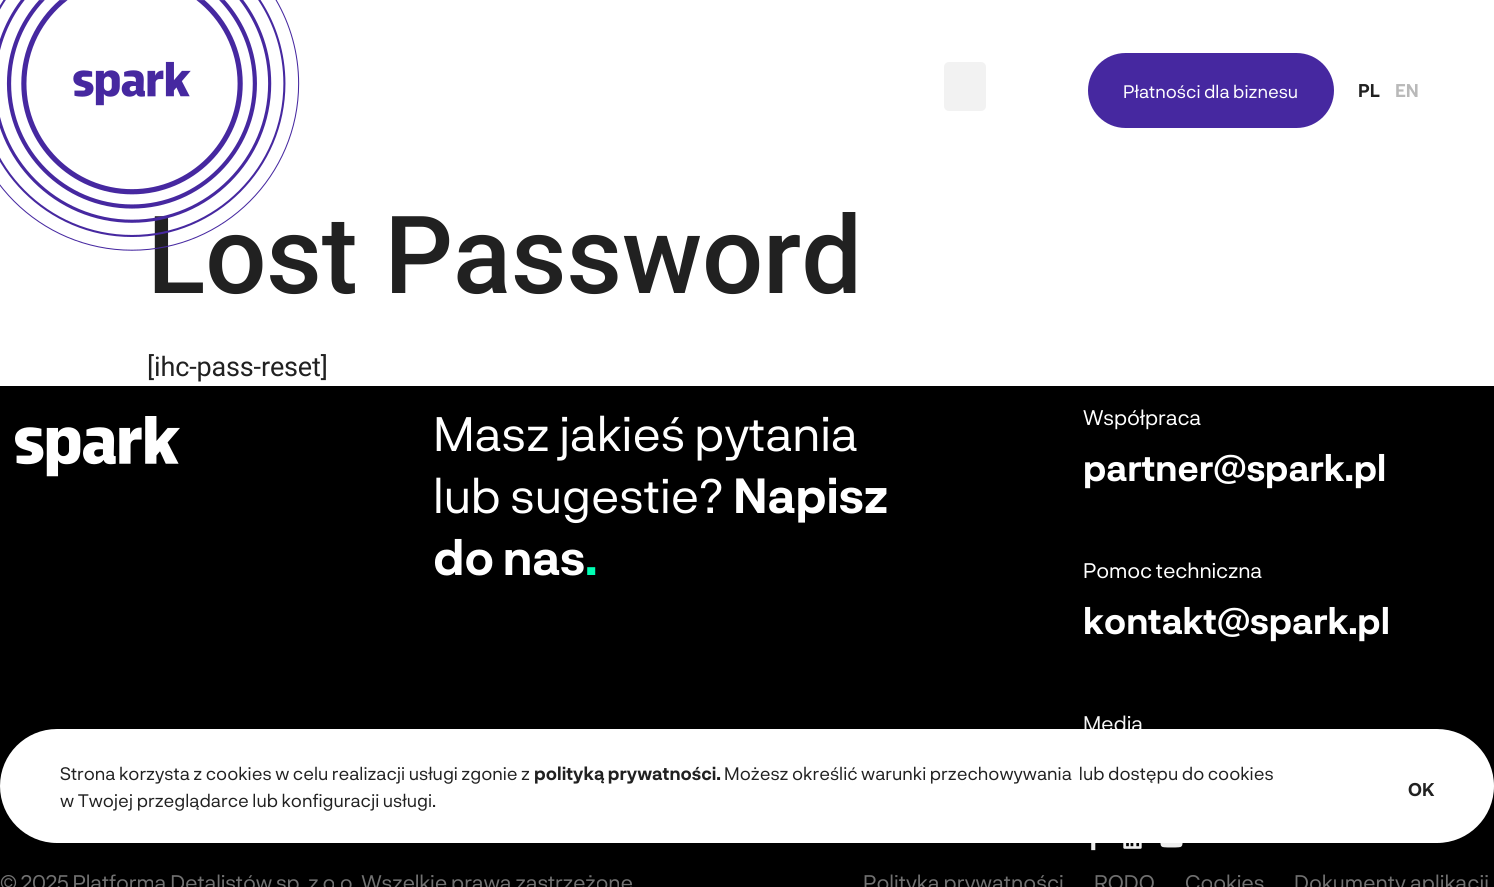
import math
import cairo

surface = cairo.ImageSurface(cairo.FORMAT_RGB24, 1494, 887)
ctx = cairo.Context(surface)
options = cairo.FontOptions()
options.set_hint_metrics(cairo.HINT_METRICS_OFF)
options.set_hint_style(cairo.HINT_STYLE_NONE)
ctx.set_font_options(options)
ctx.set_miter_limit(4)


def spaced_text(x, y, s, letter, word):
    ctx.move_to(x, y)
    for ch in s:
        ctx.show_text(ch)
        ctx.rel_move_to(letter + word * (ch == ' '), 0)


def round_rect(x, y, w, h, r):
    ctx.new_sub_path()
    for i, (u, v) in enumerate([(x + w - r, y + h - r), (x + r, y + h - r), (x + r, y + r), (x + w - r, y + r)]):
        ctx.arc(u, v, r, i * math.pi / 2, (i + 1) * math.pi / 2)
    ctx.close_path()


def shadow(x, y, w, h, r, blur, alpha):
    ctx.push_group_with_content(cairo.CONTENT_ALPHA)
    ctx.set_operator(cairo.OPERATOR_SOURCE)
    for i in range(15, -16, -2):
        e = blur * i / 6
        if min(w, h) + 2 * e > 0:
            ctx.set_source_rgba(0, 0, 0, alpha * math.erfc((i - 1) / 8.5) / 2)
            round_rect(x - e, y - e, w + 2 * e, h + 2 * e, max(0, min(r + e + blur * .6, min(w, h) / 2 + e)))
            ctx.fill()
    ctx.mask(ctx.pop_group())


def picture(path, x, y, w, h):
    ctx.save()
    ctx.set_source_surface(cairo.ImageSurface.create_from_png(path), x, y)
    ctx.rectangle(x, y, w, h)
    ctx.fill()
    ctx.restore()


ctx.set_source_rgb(1, 1, 1)
ctx.paint()
ctx.select_font_face("Roboto Medium")
ctx.set_font_size(108)
ctx.set_source_rgb(0.129, 0.129, 0.129)
spaced_text(147, 293, "Lost Password", -0.15, 0)
picture("img1.png", 0, 0, 300, 251)
ctx.set_source_rgb(0.949, 0.949, 0.949)
round_rect(944, 62, 42, 49, 5)
ctx.fill()
ctx.set_source_rgb(0.275, 0.157, 0.627)
round_rect(1088, 53, 246, 75, 37.5)
ctx.fill()
ctx.select_font_face("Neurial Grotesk")
ctx.set_font_size(18)
ctx.set_source_rgb(1, 1, 1)
ctx.move_to(1123, 98)
ctx.show_text("Płatności dla biznesu")
ctx.select_font_face("Neurial Grotesk", cairo.FONT_SLANT_NORMAL, cairo.FONT_WEIGHT_BOLD)
ctx.set_source_rgb(0.129, 0.129, 0.129)
ctx.move_to(1358, 97)
ctx.show_text("PL")
ctx.set_source_rgb(0.725, 0.725, 0.725)
ctx.move_to(1395, 97)
ctx.show_text("EN")
ctx.select_font_face("Roboto")
ctx.set_font_size(27)
ctx.set_source_rgb(0.129, 0.129, 0.129)
spaced_text(147, 376, "[ihc-pass-reset]", -0.15, 0)
ctx.set_source_rgb(0, 0, 0)
ctx.rectangle(0, 386, 1494, 501)
ctx.fill()
picture("img2.png", 15, 416, 165, 61)
ctx.select_font_face("Neurial Grotesk")
ctx.set_font_size(48)
ctx.set_source_rgb(1, 1, 1)
spaced_text(433, 451, "Masz jakieś pytania", -0.15, 0)
spaced_text(433, 513, "lub sugestie?", -0.15, 0)
ctx.select_font_face("Neurial Grotesk", cairo.FONT_SLANT_NORMAL, cairo.FONT_WEIGHT_BOLD)
spaced_text(733, 513, "Napisz", -0.15, 0)
spaced_text(433, 575, "do nas", -0.15, 0)
ctx.set_source_rgb(0, 1, 0.706)
spaced_text(585, 575, ".", -0.15, 0)
ctx.select_font_face("Neurial Grotesk")
ctx.set_font_size(21)
ctx.set_source_rgb(1, 1, 1)
spaced_text(1083, 425, "Współpraca", -0.15, 0)
ctx.select_font_face("Neurial Grotesk", cairo.FONT_SLANT_NORMAL, cairo.FONT_WEIGHT_BOLD)
ctx.set_font_size(36)
spaced_text(1083, 481, "partner@spark.pl", -0.15, 0)
ctx.select_font_face("Neurial Grotesk")
ctx.set_font_size(21)
spaced_text(1083, 578, "Pomoc techniczna", -0.15, 0)
ctx.select_font_face("Neurial Grotesk", cairo.FONT_SLANT_NORMAL, cairo.FONT_WEIGHT_BOLD)
ctx.set_font_size(36)
spaced_text(1083, 634, "kontakt@spark.pl", -0.15, 0)
ctx.select_font_face("Neurial Grotesk")
ctx.set_font_size(21)
spaced_text(1083, 731, "Media", -0.15, 0)
picture("img3.png", 1091, 843, 5, 8)
picture("img4.png", 1123, 843, 19, 6)
picture("img5.png", 1160, 843, 23, 5)
ctx.set_source_rgb(0.459, 0.459, 0.459)
spaced_text(0, 890, "© 2025 Platforma Detalistów sp. z o.o. Wszelkie prawa zastrzeżone", -0.15, 0)
ctx.move_to(863, 890)
ctx.show_text("Polityka prywatności")
ctx.move_to(1094, 890)
ctx.show_text("RODO")
spaced_text(1185, 890, "Cookies", -0.15, 0)
ctx.move_to(1294, 890)
ctx.show_text("Dokumenty aplikacji")
ctx.set_source_rgb(0, 0, 0)
shadow(-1, 737, 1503, 123, 61.5, 37.5, 0.11)
ctx.set_source_rgb(1, 1, 1)
round_rect(0, 729, 1494, 114, 57)
ctx.fill()
ctx.set_font_size(18)
ctx.set_source_rgb(0.129, 0.129, 0.129)
ctx.move_to(60, 780)
ctx.show_text("Strona korzysta z cookies w celu realizacji usługi zgonie z")
ctx.select_font_face("Neurial Grotesk", cairo.FONT_SLANT_NORMAL, cairo.FONT_WEIGHT_BOLD)
ctx.move_to(534, 780)
ctx.show_text("polityką prywatności.")
ctx.select_font_face("Neurial Grotesk")
ctx.move_to(724, 780)
ctx.show_text("Możesz określić warunki przechowywania  lub dostępu do cookies")
ctx.move_to(60, 807)
ctx.show_text("w Twojej przeglądarce lub konfiguracji usługi.")
ctx.select_font_face("Neurial Grotesk", cairo.FONT_SLANT_NORMAL, cairo.FONT_WEIGHT_BOLD)
ctx.move_to(1408, 796)
ctx.show_text("OK")
surface.write_to_png("page.png")
